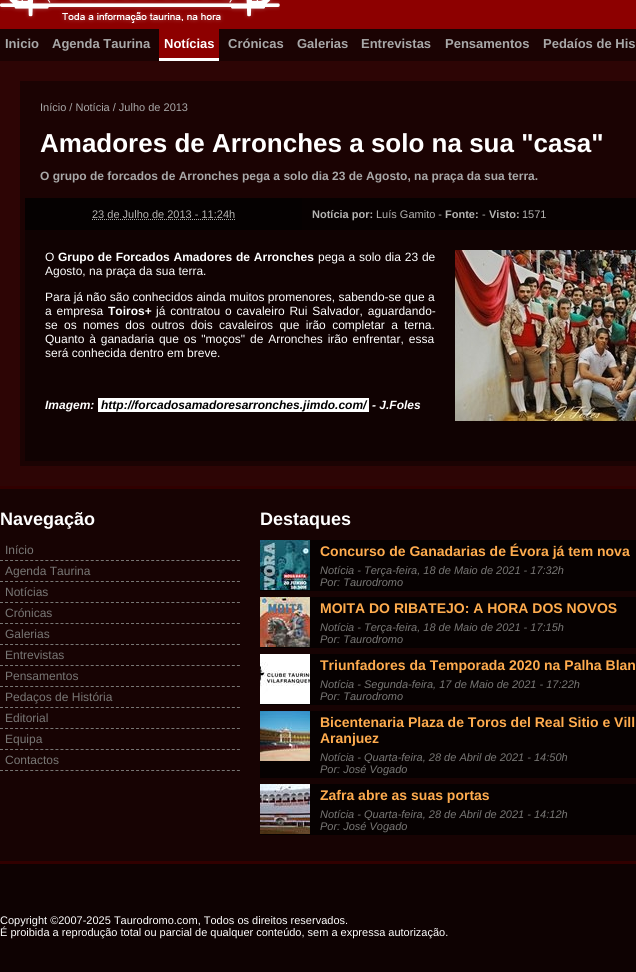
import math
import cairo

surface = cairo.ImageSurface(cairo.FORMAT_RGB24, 636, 972)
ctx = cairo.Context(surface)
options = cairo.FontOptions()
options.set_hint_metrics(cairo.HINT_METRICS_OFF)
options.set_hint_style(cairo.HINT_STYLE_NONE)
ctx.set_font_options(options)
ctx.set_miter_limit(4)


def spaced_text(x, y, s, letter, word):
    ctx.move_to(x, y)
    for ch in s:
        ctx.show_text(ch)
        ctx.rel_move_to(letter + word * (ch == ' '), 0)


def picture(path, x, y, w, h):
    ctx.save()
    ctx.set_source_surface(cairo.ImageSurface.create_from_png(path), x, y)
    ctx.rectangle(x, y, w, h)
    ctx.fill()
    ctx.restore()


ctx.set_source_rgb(0.176, 0.02, 0.02)
ctx.paint()
ctx.set_source_rgb(0.553, 0, 0)
ctx.rectangle(0, 0, 636, 29)
ctx.fill()
picture("img1.png", 0, 0, 280, 24)
ctx.set_source_rgb(0.106, 0.012, 0.012)
ctx.rectangle(0, 29, 636, 32)
ctx.fill()
ctx.select_font_face("Liberation Sans", cairo.FONT_SLANT_NORMAL, cairo.FONT_WEIGHT_BOLD)
ctx.set_font_size(13)
ctx.set_source_rgb(0.659, 0.659, 0.659)
ctx.move_to(5, 48)
ctx.show_text("Inicio")
ctx.move_to(52, 48)
ctx.show_text("Agenda Taurina")
ctx.set_source_rgb(0.553, 0, 0)
ctx.rectangle(159, 29, 60, 29)
ctx.fill()
ctx.set_source_rgb(1, 1, 1)
ctx.rectangle(159, 58, 60, 3)
ctx.fill()
ctx.move_to(164, 48)
ctx.show_text("Notícias")
ctx.set_source_rgb(0.659, 0.659, 0.659)
ctx.move_to(228, 48)
ctx.show_text("Crónicas")
ctx.move_to(297, 48)
ctx.show_text("Galerias")
ctx.move_to(361, 48)
ctx.show_text("Entrevistas")
ctx.move_to(445, 48)
ctx.show_text("Pensamentos")
ctx.move_to(543, 48)
ctx.show_text("Pedaíos de His")
ctx.set_source_rgb(0.106, 0.012, 0.012)
ctx.rectangle(20, 81, 616, 385)
ctx.fill()
ctx.select_font_face("Liberation Sans")
ctx.set_font_size(11)
ctx.set_source_rgb(0.659, 0.659, 0.659)
ctx.move_to(40, 111)
ctx.show_text("Início / Notícia / Julho de 2013")
ctx.select_font_face("Liberation Sans", cairo.FONT_SLANT_NORMAL, cairo.FONT_WEIGHT_BOLD)
ctx.set_font_size(26)
ctx.set_source_rgb(1, 1, 1)
ctx.move_to(40, 152)
ctx.show_text("Amadores de Arronches a solo na sua \"casa\"")
ctx.set_font_size(12)
ctx.set_source_rgb(0.659, 0.659, 0.659)
ctx.move_to(40, 180)
ctx.show_text("O grupo de forcados de Arronches pega a solo dia 23 de Agosto, na praça da sua terra.")
ctx.set_source_rgb(0.02, 0.004, 0.004)
ctx.rectangle(25, 198, 277, 32)
ctx.fill()
ctx.select_font_face("Liberation Sans")
ctx.set_font_size(11)
ctx.set_source_rgb(0.71, 0.706, 0.698)
ctx.move_to(92, 218)
ctx.show_text("23 de Julho de 2013 - 11:24h")
ctx.new_path()
ctx.move_to(92, 219.5)
ctx.line_to(235, 219.5)
ctx.set_line_width(1)
ctx.set_dash([1, 1])
ctx.stroke()
ctx.set_source_rgb(0.031, 0.004, 0.004)
ctx.rectangle(302, 198, 334, 32)
ctx.fill()
ctx.select_font_face("Liberation Sans", cairo.FONT_SLANT_NORMAL, cairo.FONT_WEIGHT_BOLD)
ctx.set_source_rgb(0.71, 0.706, 0.698)
ctx.move_to(312, 218)
ctx.show_text("Notícia por:")
ctx.select_font_face("Liberation Sans")
ctx.move_to(376, 218)
ctx.show_text("Luís Gamito -")
ctx.select_font_face("Liberation Sans", cairo.FONT_SLANT_NORMAL, cairo.FONT_WEIGHT_BOLD)
ctx.move_to(445, 218)
ctx.show_text("Fonte:")
ctx.select_font_face("Liberation Sans")
ctx.move_to(482, 218)
ctx.show_text("-")
ctx.select_font_face("Liberation Sans", cairo.FONT_SLANT_NORMAL, cairo.FONT_WEIGHT_BOLD)
ctx.move_to(489, 218)
ctx.show_text("Visto:")
ctx.select_font_face("Liberation Sans")
ctx.move_to(522, 218)
ctx.show_text("1571")
ctx.set_source_rgb(0.063, 0.008, 0.008)
ctx.rectangle(25, 230, 611, 231)
ctx.fill()
ctx.set_font_size(12)
ctx.set_source_rgb(1, 1, 1)
ctx.move_to(45, 261)
ctx.show_text("O")
ctx.select_font_face("Liberation Sans", cairo.FONT_SLANT_NORMAL, cairo.FONT_WEIGHT_BOLD)
spaced_text(58, 261, "Grupo de Forcados Amadores de Arronches", 0, 0.5)
ctx.select_font_face("Liberation Sans")
spaced_text(318, 261, "pega a solo dia 23 de", 0, 0.5)
ctx.move_to(45, 275)
ctx.show_text("Agosto, na praça da sua terra.")
picture("img2.png", 455, 250, 181, 171)
ctx.move_to(45, 301)
ctx.show_text("Para já não são conhecidos ainda muitos promenores, sabendo-se que a")
spaced_text(45, 315, "a empresa", 0, 1.5)
ctx.select_font_face("Liberation Sans", cairo.FONT_SLANT_NORMAL, cairo.FONT_WEIGHT_BOLD)
ctx.move_to(108, 315)
ctx.show_text("Toiros+")
ctx.select_font_face("Liberation Sans")
spaced_text(156, 315, "já contratou o cavaleiro Rui Salvador, aguardando-", 0, 1.5)
spaced_text(45, 329, "se os nomes dos outros dois cavaleiros que irão completar a terna.", 0, 3)
spaced_text(45, 343, "Quanto à ganadaria que os \"moços\" de Arronches irão enfrentar, essa", 0, 1.5)
ctx.move_to(45, 357)
ctx.show_text("será conhecida dentro em breve.")
ctx.select_font_face("Liberation Sans", cairo.FONT_SLANT_ITALIC, cairo.FONT_WEIGHT_BOLD)
ctx.move_to(45, 409)
ctx.show_text("Imagem:")
ctx.rectangle(98, 398, 271, 14)
ctx.fill()
ctx.set_source_rgb(0, 0, 0)
ctx.move_to(101, 409)
ctx.show_text("http://forcadosamadoresarronches.jimdo.com/")
ctx.set_source_rgb(1, 1, 1)
ctx.move_to(372, 409)
ctx.show_text("- J.Foles")
ctx.set_source_rgb(0.09, 0.012, 0.012)
ctx.rectangle(0, 489, 636, 372)
ctx.fill()
ctx.set_source_rgb(0.192, 0, 0)
ctx.rectangle(0, 486, 636, 3)
ctx.fill()
ctx.select_font_face("Liberation Sans", cairo.FONT_SLANT_NORMAL, cairo.FONT_WEIGHT_BOLD)
ctx.set_font_size(18)
ctx.set_source_rgb(1, 1, 1)
ctx.move_to(0, 525)
ctx.show_text("Navegação")
ctx.new_path()
ctx.move_to(0, 560.5)
ctx.line_to(240, 560.5)
ctx.set_source_rgb(0.471, 0.467, 0.459)
ctx.set_dash([3, 2.04])
ctx.stroke()
ctx.select_font_face("Liberation Sans")
ctx.set_font_size(12)
ctx.move_to(5, 554)
ctx.show_text("Início")
ctx.new_path()
ctx.move_to(0, 581.5)
ctx.line_to(240, 581.5)
ctx.stroke()
ctx.move_to(5, 575)
ctx.show_text("Agenda Taurina")
ctx.new_path()
ctx.move_to(0, 602.5)
ctx.line_to(240, 602.5)
ctx.stroke()
ctx.move_to(5, 596)
ctx.show_text("Notícias")
ctx.new_path()
ctx.move_to(0, 623.5)
ctx.line_to(240, 623.5)
ctx.stroke()
ctx.move_to(5, 617)
ctx.show_text("Crónicas")
ctx.new_path()
ctx.move_to(0, 644.5)
ctx.line_to(240, 644.5)
ctx.stroke()
ctx.move_to(5, 638)
ctx.show_text("Galerias")
ctx.new_path()
ctx.move_to(0, 665.5)
ctx.line_to(240, 665.5)
ctx.stroke()
ctx.move_to(5, 659)
ctx.show_text("Entrevistas")
ctx.new_path()
ctx.move_to(0, 686.5)
ctx.line_to(240, 686.5)
ctx.stroke()
ctx.move_to(5, 680)
ctx.show_text("Pensamentos")
ctx.new_path()
ctx.move_to(0, 707.5)
ctx.line_to(240, 707.5)
ctx.stroke()
ctx.move_to(5, 701)
ctx.show_text("Pedaços de História")
ctx.new_path()
ctx.move_to(0, 728.5)
ctx.line_to(240, 728.5)
ctx.stroke()
ctx.move_to(5, 722)
ctx.show_text("Editorial")
ctx.new_path()
ctx.move_to(0, 749.5)
ctx.line_to(240, 749.5)
ctx.stroke()
ctx.move_to(5, 743)
ctx.show_text("Equipa")
ctx.new_path()
ctx.move_to(0, 770.5)
ctx.line_to(240, 770.5)
ctx.stroke()
ctx.move_to(5, 764)
ctx.show_text("Contactos")
ctx.select_font_face("Liberation Sans", cairo.FONT_SLANT_NORMAL, cairo.FONT_WEIGHT_BOLD)
ctx.set_font_size(18)
ctx.set_source_rgb(1, 1, 1)
ctx.move_to(260, 525)
ctx.show_text("Destaques")
ctx.set_source_rgb(0.027, 0.004, 0.004)
ctx.rectangle(260, 540, 376, 51)
ctx.fill()
picture("img3.png", 260, 540, 50, 50)
ctx.set_font_size(14)
ctx.set_source_rgb(1, 0.675, 0.306)
ctx.move_to(320, 556)
ctx.show_text("Concurso de Ganadarias de Évora já tem nova")
ctx.select_font_face("Liberation Sans", cairo.FONT_SLANT_ITALIC)
ctx.set_font_size(11)
ctx.set_source_rgb(0.471, 0.467, 0.459)
ctx.move_to(320, 574)
ctx.show_text("Notícia - Terça-feira, 18 de Maio de 2021 - 17:32h")
ctx.move_to(320, 586)
ctx.show_text("Por: Taurodromo")
ctx.set_source_rgb(0.027, 0.004, 0.004)
ctx.rectangle(260, 597, 376, 51)
ctx.fill()
picture("img4.png", 260, 597, 50, 50)
ctx.select_font_face("Liberation Sans", cairo.FONT_SLANT_NORMAL, cairo.FONT_WEIGHT_BOLD)
ctx.set_font_size(14)
ctx.set_source_rgb(1, 0.675, 0.306)
ctx.move_to(320, 613)
ctx.show_text("MOITA DO RIBATEJO: A HORA DOS NOVOS")
ctx.select_font_face("Liberation Sans", cairo.FONT_SLANT_ITALIC)
ctx.set_font_size(11)
ctx.set_source_rgb(0.471, 0.467, 0.459)
ctx.move_to(320, 631)
ctx.show_text("Notícia - Terça-feira, 18 de Maio de 2021 - 17:15h")
ctx.move_to(320, 643)
ctx.show_text("Por: Taurodromo")
ctx.set_source_rgb(0.027, 0.004, 0.004)
ctx.rectangle(260, 654, 376, 51)
ctx.fill()
picture("img5.png", 260, 654, 50, 50)
ctx.select_font_face("Liberation Sans", cairo.FONT_SLANT_NORMAL, cairo.FONT_WEIGHT_BOLD)
ctx.set_font_size(14)
ctx.set_source_rgb(1, 0.675, 0.306)
ctx.move_to(320, 670)
ctx.show_text("Triunfadores da Temporada 2020 na Palha Blan")
ctx.select_font_face("Liberation Sans", cairo.FONT_SLANT_ITALIC)
ctx.set_font_size(11)
ctx.set_source_rgb(0.471, 0.467, 0.459)
ctx.move_to(320, 688)
ctx.show_text("Notícia - Segunda-feira, 17 de Maio de 2021 - 17:22h")
ctx.move_to(320, 700)
ctx.show_text("Por: Taurodromo")
ctx.set_source_rgb(0.027, 0.004, 0.004)
ctx.rectangle(260, 711, 376, 67)
ctx.fill()
picture("img6.png", 260, 711, 50, 50)
ctx.select_font_face("Liberation Sans", cairo.FONT_SLANT_NORMAL, cairo.FONT_WEIGHT_BOLD)
ctx.set_font_size(14)
ctx.set_source_rgb(1, 0.675, 0.306)
ctx.move_to(320, 727)
ctx.show_text("Bicentenaria Plaza de Toros del Real Sitio e Vill")
ctx.move_to(320, 743)
ctx.show_text("Aranjuez")
ctx.select_font_face("Liberation Sans", cairo.FONT_SLANT_ITALIC)
ctx.set_font_size(11)
ctx.set_source_rgb(0.471, 0.467, 0.459)
ctx.move_to(320, 761)
ctx.show_text("Notícia - Quarta-feira, 28 de Abril de 2021 - 14:50h")
ctx.move_to(320, 773)
ctx.show_text("Por: José Vogado")
ctx.set_source_rgb(0.027, 0.004, 0.004)
ctx.rectangle(260, 784, 376, 51)
ctx.fill()
picture("img7.png", 260, 784, 50, 50)
ctx.select_font_face("Liberation Sans", cairo.FONT_SLANT_NORMAL, cairo.FONT_WEIGHT_BOLD)
ctx.set_font_size(14)
ctx.set_source_rgb(1, 0.675, 0.306)
ctx.move_to(320, 800)
ctx.show_text("Zafra abre as suas portas")
ctx.select_font_face("Liberation Sans", cairo.FONT_SLANT_ITALIC)
ctx.set_font_size(11)
ctx.set_source_rgb(0.471, 0.467, 0.459)
ctx.move_to(320, 818)
ctx.show_text("Notícia - Quarta-feira, 28 de Abril de 2021 - 14:12h")
ctx.move_to(320, 830)
ctx.show_text("Por: José Vogado")
ctx.set_source_rgb(0.055, 0.008, 0.008)
ctx.rectangle(0, 864, 636, 108)
ctx.fill()
ctx.set_source_rgb(0.192, 0, 0)
ctx.rectangle(0, 861, 636, 3)
ctx.fill()
ctx.select_font_face("Liberation Sans")
ctx.set_source_rgb(1, 1, 1)
ctx.move_to(0, 924)
ctx.show_text("Copyright ©2007-2025 Taurodromo.com, Todos os direitos reservados.")
ctx.move_to(0, 936)
ctx.show_text("É proibida a reprodução total ou parcial de qualquer conteúdo, sem a expressa autorização.")
surface.write_to_png("page.png")
